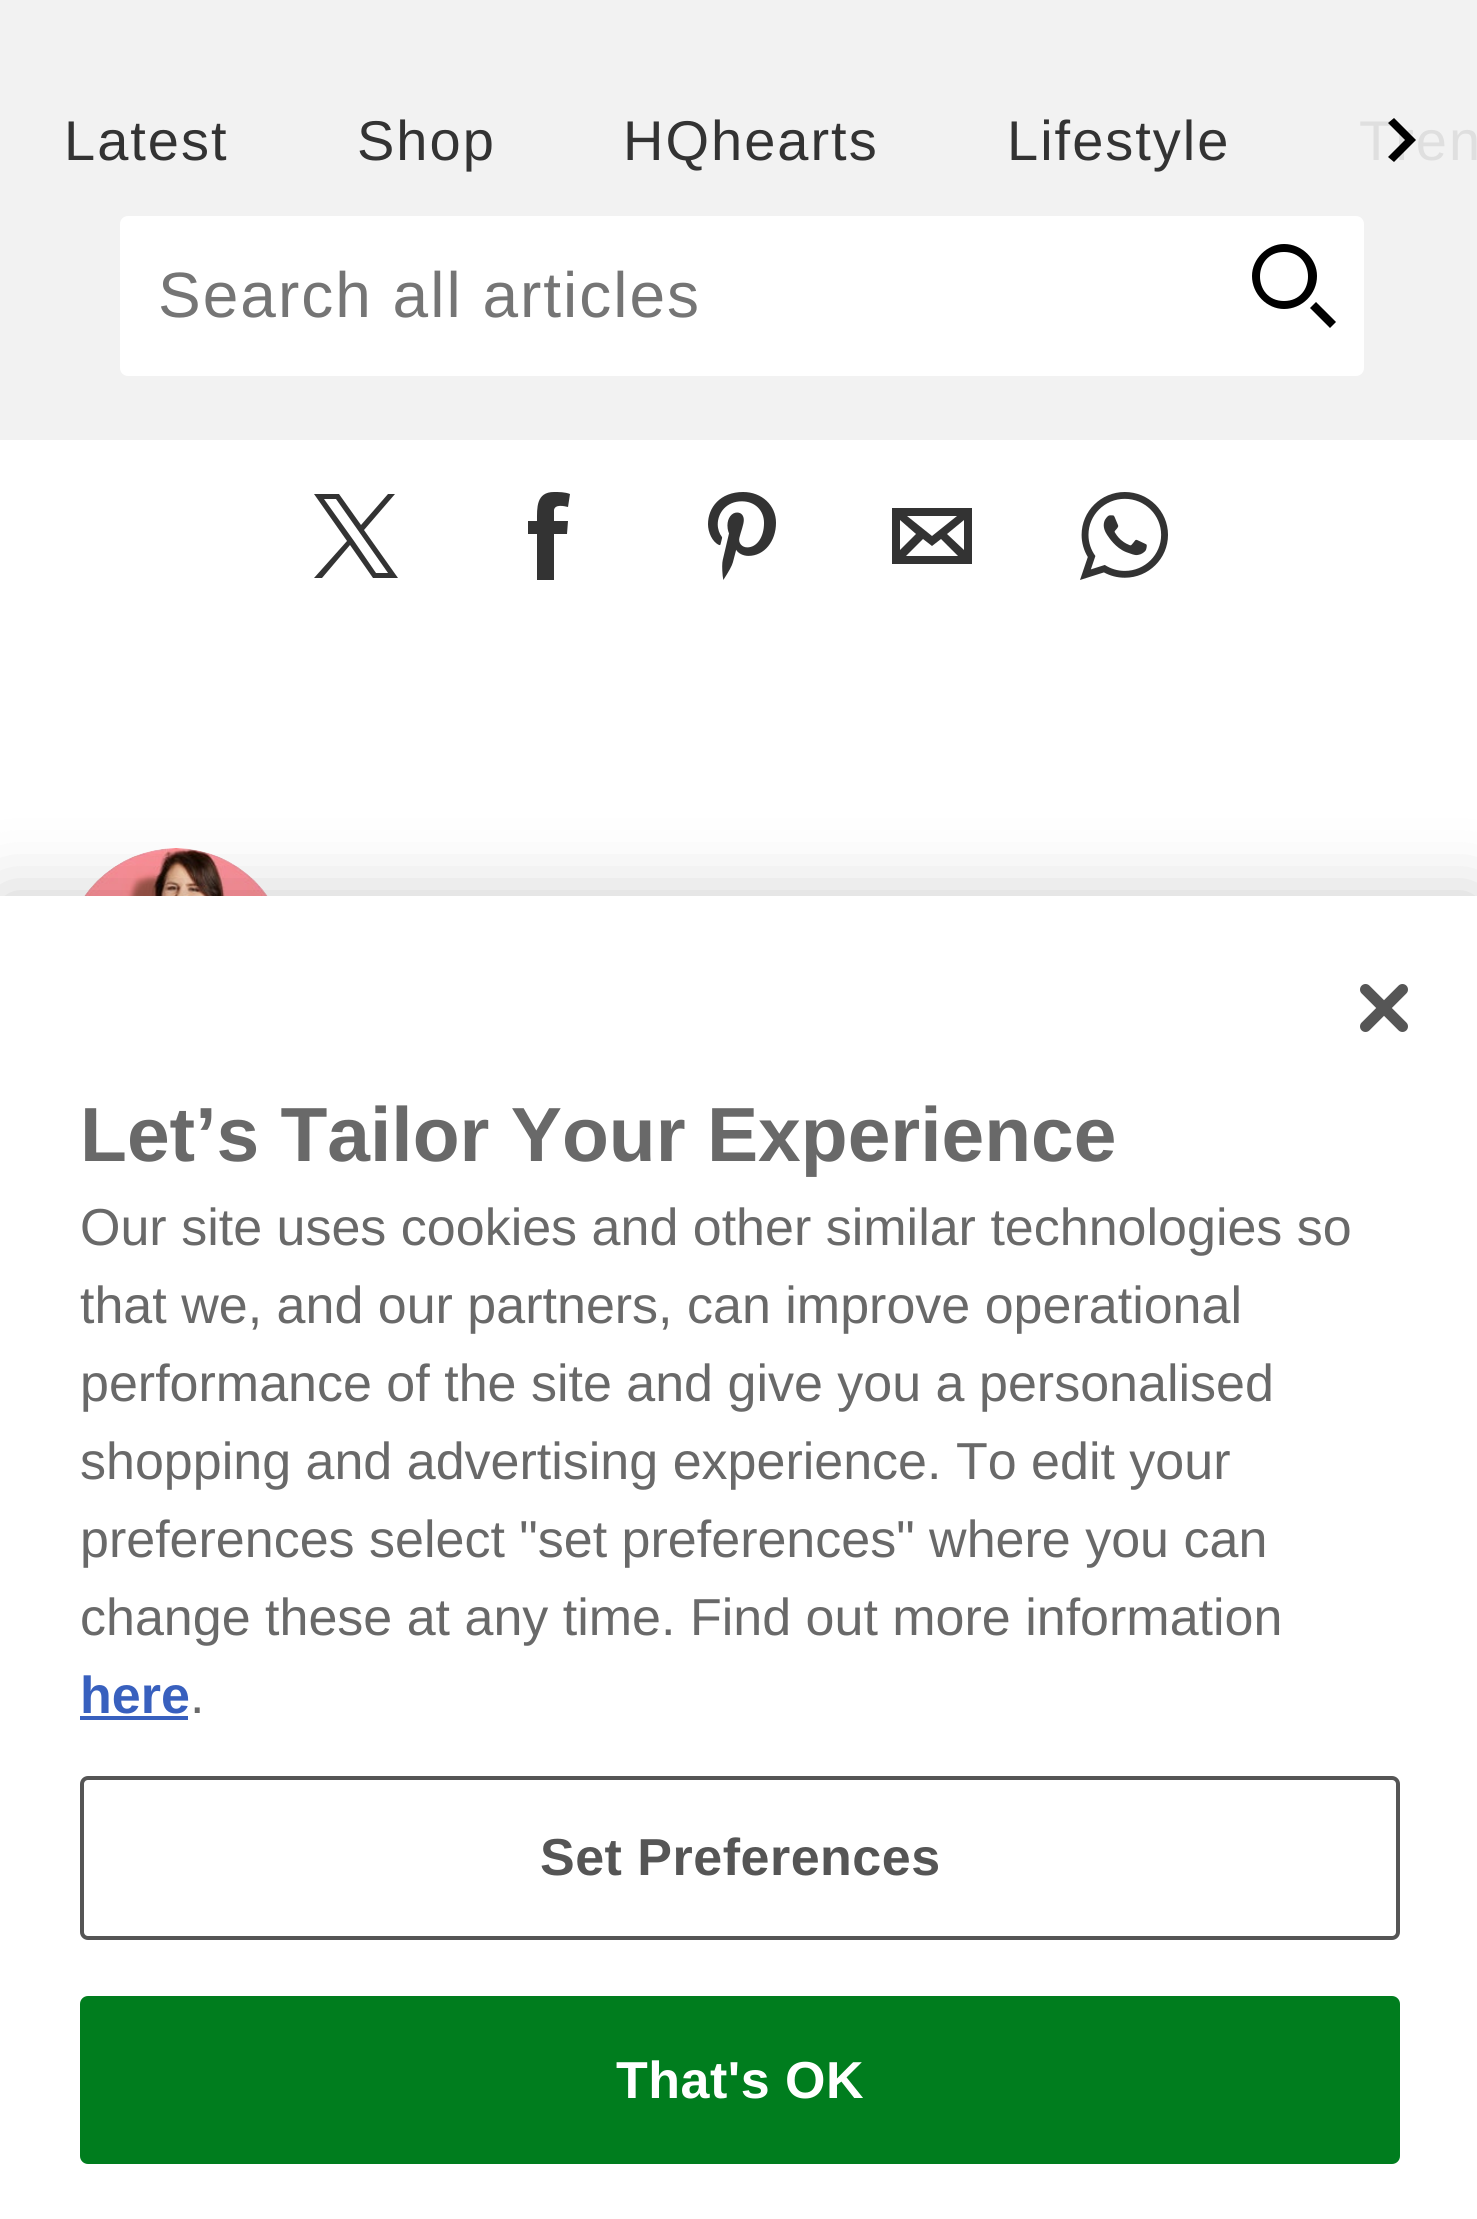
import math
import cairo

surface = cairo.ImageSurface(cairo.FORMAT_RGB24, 1477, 2219)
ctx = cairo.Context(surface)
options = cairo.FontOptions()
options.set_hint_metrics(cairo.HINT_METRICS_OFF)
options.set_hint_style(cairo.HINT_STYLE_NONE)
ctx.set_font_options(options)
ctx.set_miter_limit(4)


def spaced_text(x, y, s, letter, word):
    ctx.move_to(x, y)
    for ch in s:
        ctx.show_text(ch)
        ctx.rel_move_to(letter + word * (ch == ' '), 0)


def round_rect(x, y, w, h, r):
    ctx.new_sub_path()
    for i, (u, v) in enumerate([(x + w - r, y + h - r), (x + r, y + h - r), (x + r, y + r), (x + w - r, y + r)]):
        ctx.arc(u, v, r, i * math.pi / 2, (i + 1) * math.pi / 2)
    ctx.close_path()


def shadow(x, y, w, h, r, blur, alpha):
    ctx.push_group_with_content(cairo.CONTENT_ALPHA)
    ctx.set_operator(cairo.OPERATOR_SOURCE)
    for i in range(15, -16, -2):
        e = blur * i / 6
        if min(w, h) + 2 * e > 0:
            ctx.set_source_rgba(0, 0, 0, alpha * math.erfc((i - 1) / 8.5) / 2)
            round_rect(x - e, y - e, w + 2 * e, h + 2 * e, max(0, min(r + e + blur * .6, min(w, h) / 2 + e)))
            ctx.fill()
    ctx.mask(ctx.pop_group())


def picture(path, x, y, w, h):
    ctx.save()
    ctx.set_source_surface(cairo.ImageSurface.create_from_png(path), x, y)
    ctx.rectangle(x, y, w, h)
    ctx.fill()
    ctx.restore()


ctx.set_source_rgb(1, 1, 1)
ctx.paint()
ctx.set_source_rgb(0.949, 0.949, 0.949)
ctx.rectangle(0, 0, 1477, 440)
ctx.fill()
ctx.select_font_face("Liberation Sans")
ctx.set_font_size(56)
ctx.set_source_rgb(0.875, 0.875, 0.875)
spaced_text(1359, 160, "Tren", 2, 0)
ctx.set_source_rgb(0, 0, 0)
ctx.new_path()
ctx.move_to(1388, 157)
ctx.line_to(1405, 140)
ctx.line_to(1388, 123)
ctx.line_to(1394, 118)
ctx.line_to(1416, 140)
ctx.line_to(1394, 162)
ctx.close_path()
ctx.fill()
ctx.set_source_rgb(0.2, 0.2, 0.2)
spaced_text(64, 160, "Latest", 2, 0)
spaced_text(357, 160, "Shop", 2, 0)
spaced_text(623, 160, "HQhearts", 2, 0)
spaced_text(1007, 160, "Lifestyle", 2, 0)
ctx.set_source_rgb(1, 1, 1)
round_rect(120, 216, 1244, 160, 8)
ctx.fill()
ctx.set_font_size(64)
ctx.set_source_rgb(0.459, 0.459, 0.459)
spaced_text(158, 317, "Search all articles", 2, 0)
ctx.set_source_rgb(0, 0, 0)
ctx.new_path()
ctx.move_to(1284, 301)
ctx.curve_to(1316, 301, 1316, 252, 1284, 252)
ctx.curve_to(1252, 252, 1252, 301, 1284, 301)
ctx.close_path()
ctx.move_to(1284, 309)
ctx.curve_to(1267, 309, 1252, 294, 1252, 276)
ctx.curve_to(1252, 259, 1267, 244, 1284, 244)
ctx.curve_to(1302, 244, 1317, 259, 1317, 276)
ctx.curve_to(1317, 294, 1302, 309, 1284, 309)
ctx.close_path()
ctx.move_to(1336, 322)
ctx.line_to(1330, 328)
ctx.line_to(1310, 308)
ctx.line_to(1316, 302)
ctx.close_path()
ctx.fill()
ctx.set_source_rgb(0.2, 0.2, 0.2)
ctx.new_path()
ctx.move_to(364, 530)
ctx.line_to(395, 494)
ctx.line_to(388, 494)
ctx.line_to(361, 525)
ctx.line_to(339, 494)
ctx.line_to(314, 494)
ctx.line_to(347, 541)
ctx.line_to(314, 578)
ctx.line_to(322, 578)
ctx.line_to(350, 545)
ctx.line_to(373, 578)
ctx.line_to(398, 578)
ctx.close_path()
ctx.move_to(354, 541)
ctx.line_to(324, 499)
ctx.line_to(336, 499)
ctx.line_to(388, 573)
ctx.line_to(376, 573)
ctx.close_path()
ctx.fill()
ctx.new_path()
ctx.move_to(537, 521)
ctx.curve_to(537, 508, 536, 492, 554, 492)
ctx.curve_to(559, 492, 565, 492, 570, 494)
ctx.line_to(568, 507)
ctx.curve_to(564, 506, 555, 504, 554, 510)
ctx.line_to(554, 521)
ctx.line_to(568, 521)
ctx.line_to(567, 534)
ctx.line_to(554, 534)
ctx.line_to(554, 580)
ctx.line_to(537, 580)
ctx.line_to(537, 534)
ctx.line_to(528, 534)
ctx.line_to(528, 521)
ctx.close_path()
ctx.fill()
picture("img1.png", 708, 492, 68, 88)
ctx.new_path()
ctx.move_to(968, 564)
ctx.line_to(892, 564)
ctx.line_to(892, 508)
ctx.line_to(972, 508)
ctx.line_to(972, 564)
ctx.close_path()
ctx.move_to(958, 556)
ctx.line_to(941, 539)
ctx.line_to(932, 546)
ctx.line_to(923, 539)
ctx.line_to(906, 556)
ctx.close_path()
ctx.move_to(964, 550)
ctx.line_to(964, 520)
ctx.line_to(947, 534)
ctx.close_path()
ctx.move_to(900, 550)
ctx.line_to(916, 534)
ctx.line_to(900, 520)
ctx.close_path()
ctx.move_to(907, 516)
ctx.line_to(932, 536)
ctx.line_to(957, 516)
ctx.close_path()
ctx.fill()
picture("img2.png", 1080, 492, 88, 88)
picture("img3.png", 84, 848, 184, 48)
ctx.set_source_rgb(0, 0, 0)
shadow(0, 896, 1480, 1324, 0, 36, 0.2)
ctx.set_source_rgb(1, 1, 1)
ctx.rectangle(0, 896, 1477, 1323)
ctx.fill()
picture("img4.png", 1360, 984, 48, 48)
ctx.select_font_face("Liberation Sans", cairo.FONT_SLANT_NORMAL, cairo.FONT_WEIGHT_BOLD)
ctx.set_font_size(76.75)
ctx.set_source_rgb(0.412, 0.412, 0.412)
ctx.move_to(80, 1161)
ctx.show_text("Let’s Tailor Your Experience")
ctx.select_font_face("Liberation Sans")
ctx.set_font_size(52)
ctx.move_to(80, 1245)
ctx.show_text("Our site uses cookies and other similar technologies so")
ctx.move_to(80, 1323)
ctx.show_text("that we, and our partners, can improve operational")
ctx.move_to(80, 1401)
ctx.show_text("performance of the site and give you a personalised")
ctx.move_to(80, 1479)
ctx.show_text("shopping and advertising experience. To edit your")
ctx.move_to(80, 1557)
ctx.show_text("preferences select \"set preferences\" where you can")
ctx.move_to(80, 1635)
ctx.show_text("change these at any time. Find out more information")
ctx.select_font_face("Liberation Sans", cairo.FONT_SLANT_NORMAL, cairo.FONT_WEIGHT_BOLD)
ctx.set_source_rgb(0.22, 0.376, 0.745)
ctx.move_to(80, 1713)
ctx.show_text("here")
ctx.rectangle(80, 1716, 108, 4)
ctx.fill()
ctx.select_font_face("Liberation Sans")
ctx.set_source_rgb(0.412, 0.412, 0.412)
ctx.move_to(190, 1713)
ctx.show_text(".")
round_rect(82, 1778, 1316, 160, 6)
ctx.set_source_rgb(0.333, 0.333, 0.333)
ctx.set_line_width(4)
ctx.stroke()
ctx.select_font_face("Liberation Sans", cairo.FONT_SLANT_NORMAL, cairo.FONT_WEIGHT_BOLD)
spaced_text(540, 1875, "Set Preferences", 0.5, 0)
ctx.set_source_rgb(0, 0.49, 0.118)
round_rect(82, 1998, 1316, 164, 6)
ctx.fill_preserve()
ctx.stroke()
ctx.set_source_rgb(1, 1, 1)
spaced_text(616, 2098, "That's OK", 0.5, 0)
surface.write_to_png("page.png")
